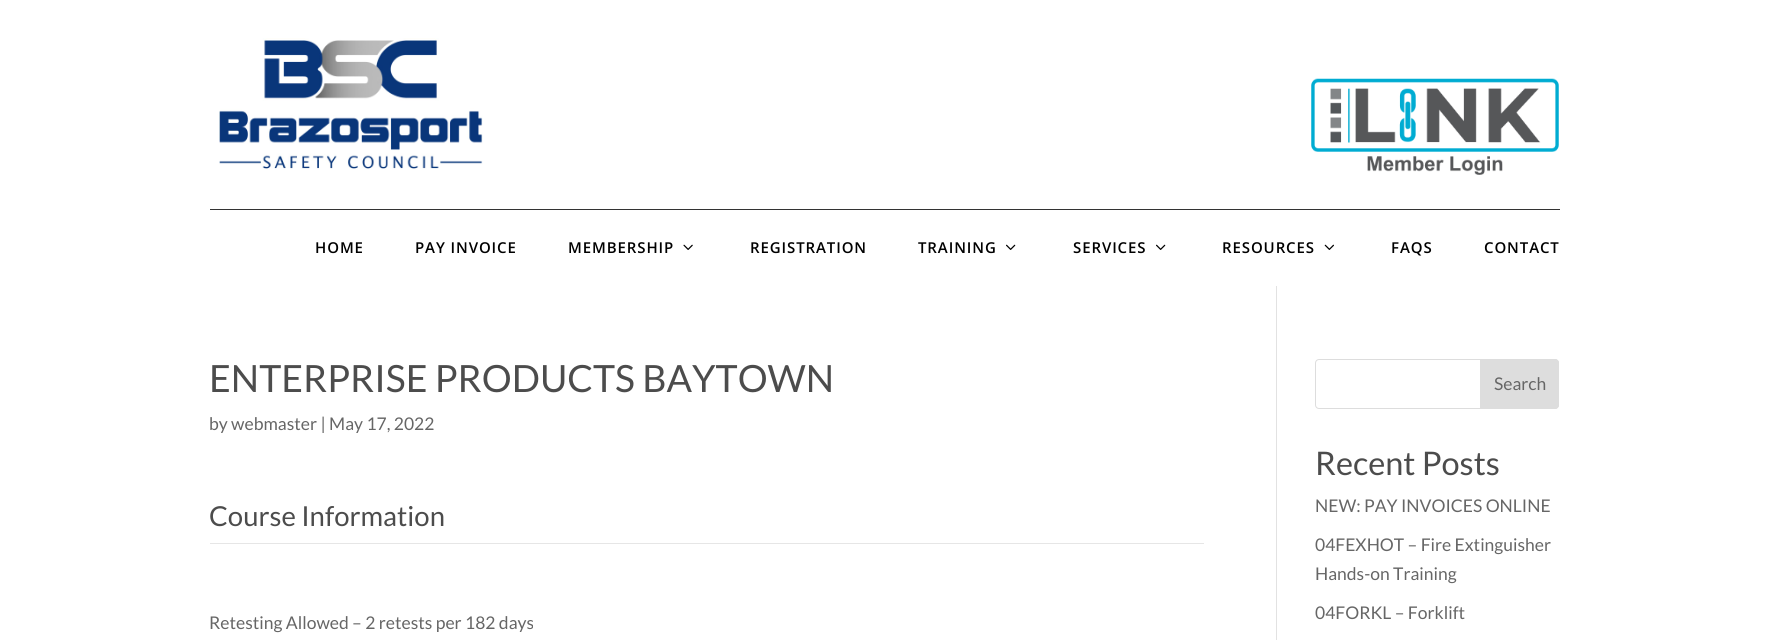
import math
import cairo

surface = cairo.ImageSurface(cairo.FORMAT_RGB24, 1768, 640)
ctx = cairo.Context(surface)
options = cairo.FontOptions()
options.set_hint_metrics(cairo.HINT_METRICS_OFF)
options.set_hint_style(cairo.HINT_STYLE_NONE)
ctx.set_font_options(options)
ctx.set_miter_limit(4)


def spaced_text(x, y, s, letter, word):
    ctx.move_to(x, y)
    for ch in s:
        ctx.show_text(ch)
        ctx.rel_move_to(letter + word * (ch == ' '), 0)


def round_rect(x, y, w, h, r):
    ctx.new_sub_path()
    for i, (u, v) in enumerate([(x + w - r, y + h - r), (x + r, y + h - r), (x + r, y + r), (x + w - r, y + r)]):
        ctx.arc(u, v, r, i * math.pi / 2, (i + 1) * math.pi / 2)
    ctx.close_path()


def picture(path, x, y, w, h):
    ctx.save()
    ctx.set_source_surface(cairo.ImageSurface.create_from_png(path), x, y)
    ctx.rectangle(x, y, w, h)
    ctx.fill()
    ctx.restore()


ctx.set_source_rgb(1, 1, 1)
ctx.paint()
picture("img1.png", 219, 38, 264, 132)
picture("img2.png", 1311, 78, 248, 97)
ctx.set_source_rgb(0.2, 0.2, 0.2)
ctx.rectangle(210, 209, 1350, 1)
ctx.fill()
ctx.select_font_face("Open Sans SemiBold")
ctx.set_font_size(15)
ctx.set_source_rgb(0, 0, 0)
spaced_text(315, 253, "HOME", 0.9, 0)
spaced_text(415, 253, "PAY INVOICE", 0.9, 0)
spaced_text(568, 253, "MEMBERSHIP", 0.9, 0)
picture("img3.png", 683, 244, 10, 6)
spaced_text(750, 253, "REGISTRATION", 0.9, 0)
spaced_text(918, 253, "TRAINING", 0.9, 0)
picture("img4.png", 1006, 244, 10, 6)
spaced_text(1073, 253, "SERVICES", 0.9, 0)
picture("img4.png", 1156, 244, 10, 6)
spaced_text(1222, 253, "RESOURCES", 0.9, 0)
picture("img5.png", 1324, 244, 10, 6)
spaced_text(1391, 253, "FAQS", 0.9, 0)
spaced_text(1484, 253, "CONTACT", 0.9, 0)
ctx.set_source_rgb(0.886, 0.886, 0.886)
ctx.rectangle(1276, 286, 1, 354)
ctx.fill()
ctx.select_font_face("Lato")
ctx.set_font_size(37.5)
ctx.set_source_rgb(0.298, 0.298, 0.298)
ctx.move_to(209, 392)
ctx.show_text("ENTERPRISE PRODUCTS BAYTOWN")
ctx.set_font_size(17.5)
ctx.set_source_rgb(0.4, 0.4, 0.4)
ctx.move_to(209, 430)
ctx.show_text("by webmaster | May 17, 2022")
ctx.set_font_size(27.5)
ctx.set_source_rgb(0.298, 0.298, 0.298)
ctx.move_to(209, 526)
ctx.show_text("Course Information")
ctx.set_source_rgb(0.902, 0.902, 0.902)
ctx.rectangle(210, 543, 994, 1)
ctx.fill()
ctx.set_font_size(17.5)
ctx.set_source_rgb(0.4, 0.4, 0.4)
ctx.move_to(209, 629)
ctx.show_text("Retesting Allowed – 2 retests per 182 days")
round_rect(1315.5, 359.5, 243, 49, 3.5)
ctx.set_source_rgb(0.867, 0.867, 0.867)
ctx.set_line_width(1)
ctx.stroke()
ctx.new_path()
ctx.move_to(1480.5, 359.5)
ctx.line_to(1555, 359.5)
ctx.curve_to(1557, 359.5, 1558.5, 361, 1558.5, 363)
ctx.line_to(1558.5, 405)
ctx.curve_to(1558.5, 407, 1557, 408.5, 1555, 408.5)
ctx.line_to(1480.5, 408.5)
ctx.close_path()
ctx.fill_preserve()
ctx.stroke()
ctx.set_source_rgb(0.4, 0.4, 0.4)
ctx.move_to(1494, 390)
ctx.show_text("Search")
ctx.set_font_size(32.5)
ctx.set_source_rgb(0.298, 0.298, 0.298)
ctx.move_to(1315, 475)
ctx.show_text("Recent Posts")
ctx.set_font_size(17.5)
ctx.set_source_rgb(0.4, 0.4, 0.4)
ctx.move_to(1315, 512)
ctx.show_text("NEW: PAY INVOICES ONLINE")
ctx.move_to(1315, 551)
ctx.show_text("04FEXHOT – Fire Extinguisher")
ctx.move_to(1315, 580)
ctx.show_text("Hands-on Training")
ctx.move_to(1315, 619)
ctx.show_text("04FORKL – Forklift")
surface.write_to_png("page.png")
